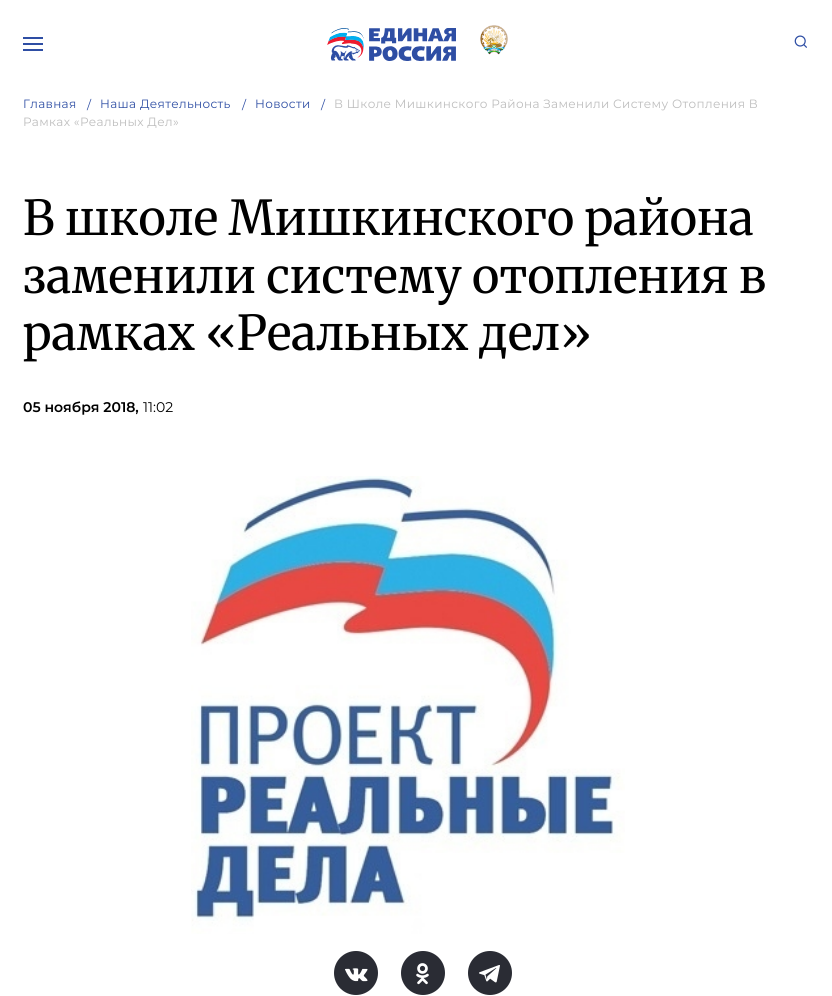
import math
import cairo

surface = cairo.ImageSurface(cairo.FORMAT_RGB24, 832, 996)
ctx = cairo.Context(surface)
options = cairo.FontOptions()
options.set_hint_metrics(cairo.HINT_METRICS_OFF)
options.set_hint_style(cairo.HINT_STYLE_NONE)
ctx.set_font_options(options)
ctx.set_miter_limit(4)


def spaced_text(x, y, s, letter, word):
    ctx.move_to(x, y)
    for ch in s:
        ctx.show_text(ch)
        ctx.rel_move_to(letter + word * (ch == ' '), 0)


def picture(path, x, y, w, h):
    ctx.save()
    ctx.set_source_surface(cairo.ImageSurface.create_from_png(path), x, y)
    ctx.rectangle(x, y, w, h)
    ctx.fill()
    ctx.restore()


ctx.set_source_rgb(1, 1, 1)
ctx.paint()
ctx.set_source_rgb(0.18, 0.306, 0.643)
ctx.rectangle(23, 37, 20, 2)
ctx.fill()
ctx.rectangle(23, 43, 20, 2)
ctx.fill()
ctx.rectangle(23, 49, 20, 2)
ctx.fill()
picture("img1.png", 327, 28, 129, 33)
picture("img2.png", 480, 25, 28, 30)
picture("img3.png", 794, 35, 13, 13)
ctx.select_font_face("Montserrat")
ctx.set_font_size(12)
spaced_text(23, 108, "Главная", 0.35, 0)
spaced_text(87, 109, "/", 0.35, 0)
spaced_text(100, 108, "Наша Деятельность", 0.35, 0)
spaced_text(242, 109, "/", 0.35, 0)
spaced_text(255, 108, "Новости", 0.35, 0)
spaced_text(321, 109, "/", 0.35, 0)
ctx.set_source_rgb(0.741, 0.741, 0.741)
spaced_text(334, 108, "В Школе Мишкинского Района Заменили Систему Отопления В", 0.35, 0)
spaced_text(23, 126, "Рамках «Реальных Дел»", 0.35, 0)
ctx.select_font_face("Merriweather")
ctx.set_font_size(48)
ctx.set_source_rgb(0, 0, 0)
ctx.move_to(23, 235)
ctx.show_text("В школе Мишкинского района")
ctx.move_to(23, 293)
ctx.show_text("заменили систему отопления в")
ctx.move_to(23, 350)
ctx.show_text("рамках «Реальных дел»")
ctx.select_font_face("Montserrat SemiBold")
ctx.set_font_size(14)
ctx.move_to(23, 412)
ctx.show_text("05 ноября 2018,")
ctx.select_font_face("Montserrat")
ctx.move_to(143, 412)
ctx.show_text("11:02")
picture("img4.png", 191, 476, 434, 458)
ctx.set_source_rgb(0.165, 0.173, 0.204)
ctx.arc(356, 973, 22, 0, 2 * math.pi)
ctx.fill()
picture("img5.png", 345, 968, 23, 14)
ctx.arc(423, 973, 22, 0, 2 * math.pi)
ctx.fill()
picture("img6.png", 416, 963, 13, 22)
ctx.arc(490, 973, 22, 0, 2 * math.pi)
ctx.fill()
picture("img7.png", 479, 965, 21, 18)
surface.write_to_png("page.png")
